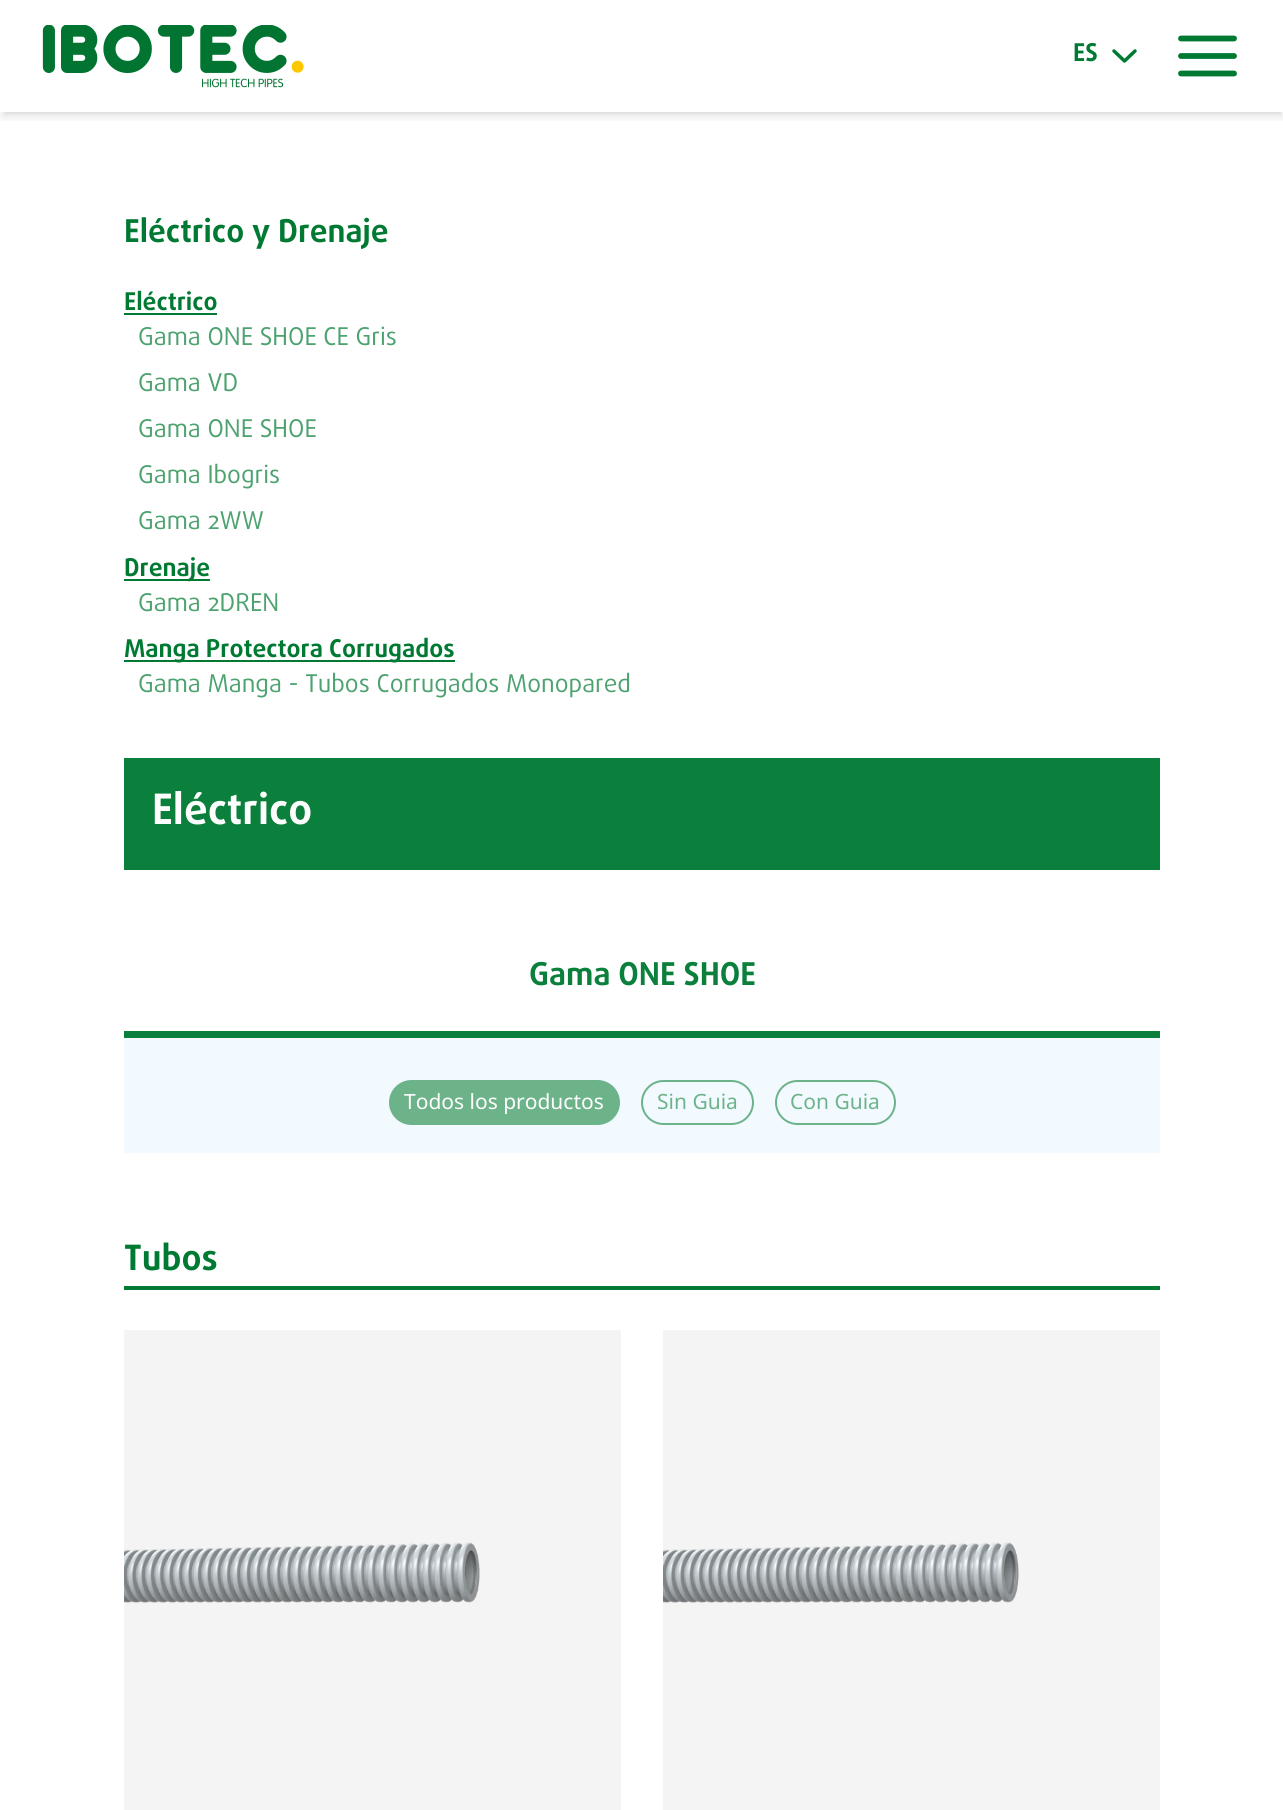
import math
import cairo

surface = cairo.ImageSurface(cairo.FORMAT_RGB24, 1283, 1810)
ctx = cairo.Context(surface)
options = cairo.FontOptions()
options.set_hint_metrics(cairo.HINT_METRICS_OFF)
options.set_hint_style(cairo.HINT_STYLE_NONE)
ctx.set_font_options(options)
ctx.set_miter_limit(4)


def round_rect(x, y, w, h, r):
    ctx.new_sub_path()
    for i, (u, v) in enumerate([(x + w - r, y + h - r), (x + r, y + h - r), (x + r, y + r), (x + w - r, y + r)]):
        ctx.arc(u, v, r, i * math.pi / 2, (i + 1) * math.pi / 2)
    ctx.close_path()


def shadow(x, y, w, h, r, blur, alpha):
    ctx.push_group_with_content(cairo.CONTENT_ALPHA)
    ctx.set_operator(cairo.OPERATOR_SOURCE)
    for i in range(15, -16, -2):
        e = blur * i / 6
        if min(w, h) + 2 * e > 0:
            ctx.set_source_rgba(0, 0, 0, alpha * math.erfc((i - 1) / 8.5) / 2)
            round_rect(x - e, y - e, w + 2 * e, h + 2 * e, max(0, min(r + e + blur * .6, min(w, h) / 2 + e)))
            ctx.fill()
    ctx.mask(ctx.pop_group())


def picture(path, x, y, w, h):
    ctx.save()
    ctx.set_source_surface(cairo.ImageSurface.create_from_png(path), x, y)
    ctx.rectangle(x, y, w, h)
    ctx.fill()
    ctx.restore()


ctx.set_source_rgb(1, 1, 1)
ctx.paint()
ctx.save()
ctx.rectangle(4, 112, 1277, 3)
ctx.clip()
ctx.set_source_rgb(0, 0, 0)
shadow(4, 7, 1277, 105, 0, 3.5, 0.1)
ctx.restore()
ctx.save()
ctx.rectangle(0, 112, 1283, 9)
ctx.clip()
ctx.set_source_rgb(0, 0, 0)
shadow(2, 9, 1281, 108, 0, 5, 0.1)
ctx.restore()
picture("img1.png", 42, 25, 262, 63)
ctx.select_font_face("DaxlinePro", cairo.FONT_SLANT_NORMAL, cairo.FONT_WEIGHT_BOLD)
ctx.set_font_size(24.5)
ctx.set_source_rgb(0, 0.478, 0.2)
ctx.move_to(1073, 61)
ctx.show_text("ES")
ctx.new_path()
ctx.move_to(1114, 51)
ctx.line_to(1124.5, 61)
ctx.line_to(1135, 51)
ctx.set_line_width(3.5)
ctx.set_line_cap(cairo.LINE_CAP_ROUND)
ctx.set_line_join(cairo.LINE_JOIN_ROUND)
ctx.stroke()
ctx.new_path()
ctx.move_to(1181, 56)
ctx.line_to(1234, 56)
ctx.move_to(1181, 38.5)
ctx.line_to(1234, 38.5)
ctx.move_to(1181, 73.5)
ctx.line_to(1234, 73.5)
ctx.set_line_width(5.8)
ctx.stroke()
ctx.set_font_size(31.5)
ctx.move_to(124, 242)
ctx.show_text("Eléctrico y Drenaje")
ctx.set_font_size(24.5)
ctx.move_to(124, 310)
ctx.show_text("Eléctrico")
ctx.rectangle(124, 313, 93, 2)
ctx.fill()
ctx.select_font_face("DaxlinePro")
ctx.set_source_rgb(0.302, 0.635, 0.439)
ctx.move_to(138, 345)
ctx.show_text("Gama ONE SHOE CE Gris")
ctx.move_to(138, 391)
ctx.show_text("Gama VD")
ctx.move_to(138, 437)
ctx.show_text("Gama ONE SHOE")
ctx.move_to(138, 483)
ctx.show_text("Gama Ibogris")
ctx.move_to(138, 529)
ctx.show_text("Gama 2WW")
ctx.set_source_rgb(0, 0.478, 0.2)
ctx.rectangle(124, 579, 86, 2)
ctx.fill()
ctx.select_font_face("DaxlinePro", cairo.FONT_SLANT_NORMAL, cairo.FONT_WEIGHT_BOLD)
ctx.move_to(124, 576)
ctx.show_text("Drenaje")
ctx.select_font_face("DaxlinePro")
ctx.set_source_rgb(0.302, 0.635, 0.439)
ctx.move_to(138, 611)
ctx.show_text("Gama 2DREN")
ctx.set_source_rgb(0, 0.478, 0.2)
ctx.rectangle(124, 660, 331, 2)
ctx.fill()
ctx.select_font_face("DaxlinePro", cairo.FONT_SLANT_NORMAL, cairo.FONT_WEIGHT_BOLD)
ctx.move_to(124, 657)
ctx.show_text("Manga Protectora Corrugados")
ctx.select_font_face("DaxlinePro")
ctx.set_source_rgb(0.302, 0.635, 0.439)
ctx.move_to(138, 692)
ctx.show_text("Gama Manga - Tubos Corrugados Monopared")
ctx.set_source_rgb(0.043, 0.502, 0.235)
ctx.rectangle(124, 758, 1036, 112)
ctx.fill()
ctx.select_font_face("DaxlinePro", cairo.FONT_SLANT_NORMAL, cairo.FONT_WEIGHT_BOLD)
ctx.set_font_size(42)
ctx.set_source_rgb(0.992, 0.992, 0.992)
ctx.move_to(152, 824)
ctx.show_text("Eléctrico")
ctx.set_source_rgb(0.043, 0.502, 0.235)
ctx.rectangle(124, 1031, 1036, 7)
ctx.fill()
ctx.set_font_size(31.5)
ctx.move_to(529, 985)
ctx.show_text("Gama ONE SHOE")
ctx.set_source_rgb(0.949, 0.98, 1)
ctx.rectangle(124, 1038, 1036, 115)
ctx.fill()
ctx.set_source_rgb(0.427, 0.702, 0.541)
round_rect(390, 1081, 229, 43, 21.5)
ctx.fill_preserve()
ctx.set_line_width(2)
ctx.set_line_cap(cairo.LINE_CAP_BUTT)
ctx.set_line_join(cairo.LINE_JOIN_MITER)
ctx.stroke()
ctx.select_font_face("Noto Sans")
ctx.set_font_size(21)
ctx.set_source_rgb(0.992, 0.992, 0.992)
ctx.move_to(404, 1109)
ctx.show_text("Todos los productos")
round_rect(642, 1081, 111, 43, 21.5)
ctx.set_source_rgb(0.427, 0.702, 0.541)
ctx.stroke()
ctx.move_to(657, 1109)
ctx.show_text("Sin Guia")
round_rect(776, 1081, 119, 43, 21.5)
ctx.stroke()
ctx.move_to(790, 1109)
ctx.show_text("Con Guia")
ctx.set_source_rgb(0, 0.478, 0.2)
ctx.rectangle(124, 1286, 1036, 4)
ctx.fill()
ctx.select_font_face("DaxlinePro", cairo.FONT_SLANT_NORMAL, cairo.FONT_WEIGHT_BOLD)
ctx.set_font_size(35)
ctx.move_to(124, 1270)
ctx.show_text("Tubos")
ctx.set_source_rgb(0.957, 0.957, 0.957)
ctx.rectangle(124, 1330, 497, 480)
ctx.fill()
picture("img2.png", 124, 1542, 356, 61)
ctx.rectangle(663, 1330, 497, 480)
ctx.fill()
picture("img3.png", 663, 1542, 356, 61)
surface.write_to_png("page.png")
